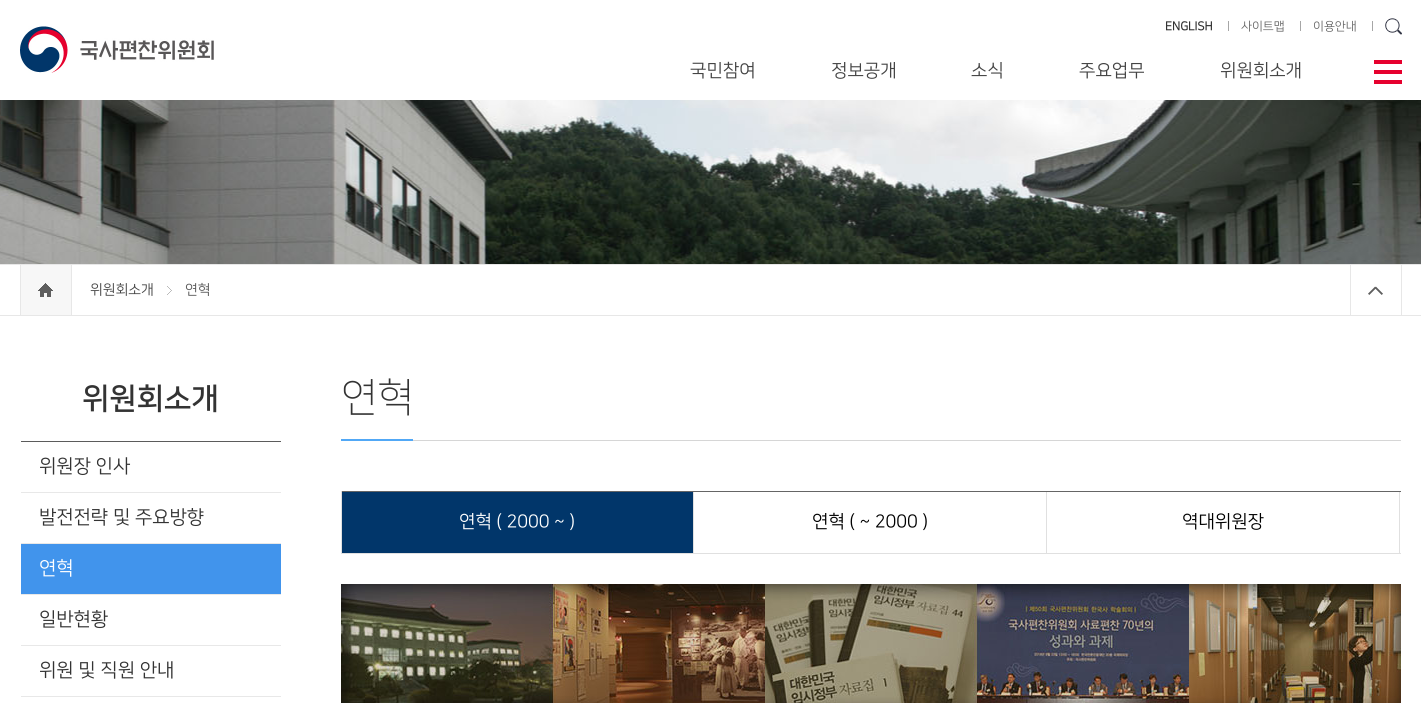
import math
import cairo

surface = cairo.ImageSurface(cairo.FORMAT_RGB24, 1421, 703)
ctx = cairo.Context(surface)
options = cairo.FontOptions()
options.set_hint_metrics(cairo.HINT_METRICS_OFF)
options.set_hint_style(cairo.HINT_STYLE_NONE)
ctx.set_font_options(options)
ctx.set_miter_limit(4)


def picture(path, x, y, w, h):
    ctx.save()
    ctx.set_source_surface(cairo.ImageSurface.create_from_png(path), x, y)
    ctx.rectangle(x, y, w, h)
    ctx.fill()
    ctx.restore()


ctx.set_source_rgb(1, 1, 1)
ctx.paint()
picture("img1.png", 20, 26, 194, 47)
ctx.select_font_face("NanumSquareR", cairo.FONT_SLANT_NORMAL, cairo.FONT_WEIGHT_BOLD)
ctx.set_font_size(12)
ctx.set_source_rgb(0.2, 0.2, 0.2)
ctx.move_to(1165, 30)
ctx.show_text("ENGLISH")
ctx.set_source_rgb(0.651, 0.651, 0.651)
ctx.rectangle(1228, 21, 1, 10)
ctx.fill()
ctx.select_font_face("NanumSquareR")
ctx.set_source_rgb(0.4, 0.4, 0.4)
ctx.move_to(1241, 30)
ctx.show_text("사이트맵")
ctx.set_source_rgb(0.651, 0.651, 0.651)
ctx.rectangle(1300, 21, 1, 10)
ctx.fill()
ctx.set_source_rgb(0.4, 0.4, 0.4)
ctx.move_to(1313, 30)
ctx.show_text("이용안내")
ctx.set_source_rgb(0.651, 0.651, 0.651)
ctx.rectangle(1372, 21, 1, 10)
ctx.fill()
picture("img2.png", 1385, 18, 17, 17)
picture("img3.png", 1374, 60, 28, 24)
ctx.set_font_size(18)
ctx.set_source_rgb(0.267, 0.267, 0.267)
ctx.move_to(690, 76)
ctx.show_text("국민참여")
ctx.move_to(831, 76)
ctx.show_text("정보공개")
ctx.move_to(971, 76)
ctx.show_text("소식")
ctx.move_to(1079, 76)
ctx.show_text("주요업무")
ctx.move_to(1220, 76)
ctx.show_text("위원회소개")
picture("img4.png", 0, 100, 1421, 164)
ctx.set_source_rgb(0.906, 0.906, 0.906)
ctx.rectangle(0, 264, 1421, 1)
ctx.fill()
ctx.rectangle(0, 315, 1421, 1)
ctx.fill()
ctx.set_source_rgb(0.965, 0.965, 0.965)
ctx.rectangle(21, 265, 50, 50)
ctx.fill()
picture("img5.png", 38, 283, 15, 14)
ctx.set_source_rgb(0.906, 0.906, 0.906)
ctx.rectangle(71, 265, 1, 50)
ctx.fill()
ctx.rectangle(20, 265, 1, 50)
ctx.fill()
ctx.set_font_size(14)
ctx.set_source_rgb(0.267, 0.267, 0.267)
ctx.move_to(90, 294)
ctx.show_text("위원회소개")
picture("img6.png", 167, 286, 5, 9)
ctx.set_source_rgb(0.333, 0.333, 0.333)
ctx.move_to(185, 294)
ctx.show_text("연혁")
picture("img7.png", 1368, 286, 15, 9)
ctx.set_source_rgb(0.906, 0.906, 0.906)
ctx.rectangle(1401, 265, 1, 50)
ctx.fill()
ctx.rectangle(1350, 265, 1, 50)
ctx.fill()
ctx.select_font_face("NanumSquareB", cairo.FONT_SLANT_NORMAL, cairo.FONT_WEIGHT_BOLD)
ctx.set_font_size(30)
ctx.set_source_rgb(0.2, 0.2, 0.2)
ctx.move_to(82, 408)
ctx.show_text("위원회소개")
ctx.set_source_rgb(0.357, 0.357, 0.357)
ctx.rectangle(21, 441, 260, 1)
ctx.fill()
ctx.set_source_rgb(0.91, 0.91, 0.91)
ctx.rectangle(21, 492, 260, 1)
ctx.fill()
ctx.select_font_face("NanumSquareR")
ctx.set_font_size(19)
ctx.set_source_rgb(0.2, 0.2, 0.2)
ctx.move_to(39, 472)
ctx.show_text("위원장 인사")
ctx.set_source_rgb(0.91, 0.91, 0.91)
ctx.rectangle(21, 543, 260, 1)
ctx.fill()
ctx.set_source_rgb(0.2, 0.2, 0.2)
ctx.move_to(39, 523)
ctx.show_text("발전전략 및 주요방향")
ctx.set_source_rgb(0.255, 0.58, 0.925)
ctx.rectangle(21, 544, 260, 50)
ctx.fill()
ctx.set_source_rgb(0.91, 0.91, 0.91)
ctx.rectangle(21, 594, 260, 1)
ctx.fill()
ctx.set_source_rgb(1, 1, 1)
ctx.move_to(39, 574)
ctx.show_text("연혁")
ctx.set_source_rgb(0.91, 0.91, 0.91)
ctx.rectangle(21, 645, 260, 1)
ctx.fill()
ctx.set_source_rgb(0.2, 0.2, 0.2)
ctx.move_to(39, 625)
ctx.show_text("일반현황")
ctx.set_source_rgb(0.91, 0.91, 0.91)
ctx.rectangle(21, 696, 260, 1)
ctx.fill()
ctx.set_source_rgb(0.2, 0.2, 0.2)
ctx.move_to(39, 676)
ctx.show_text("위원 및 직원 안내")
ctx.set_source_rgb(0.318, 0.659, 0.961)
ctx.rectangle(341, 439, 72, 2)
ctx.fill()
ctx.select_font_face("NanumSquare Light")
ctx.set_font_size(40)
ctx.set_source_rgb(0.2, 0.2, 0.2)
ctx.move_to(341, 410)
ctx.show_text("연혁")
ctx.set_source_rgb(0.839, 0.839, 0.839)
ctx.rectangle(413, 440, 988, 1)
ctx.fill()
ctx.set_source_rgb(0.396, 0.396, 0.396)
ctx.rectangle(341, 491, 1060, 1)
ctx.fill()
ctx.set_source_rgb(0.878, 0.878, 0.878)
ctx.rectangle(341, 553, 1060, 1)
ctx.fill()
ctx.rectangle(341, 491, 1, 63)
ctx.fill()
ctx.set_source_rgb(0.004, 0.212, 0.416)
ctx.rectangle(342, 492, 351, 61)
ctx.fill()
ctx.set_source_rgb(0.878, 0.878, 0.878)
ctx.rectangle(693, 492, 1, 61)
ctx.fill()
ctx.select_font_face("NanumSquareR")
ctx.set_font_size(18)
ctx.set_source_rgb(1, 1, 1)
ctx.move_to(459, 527)
ctx.show_text("연혁 ( 2000 ~ )")
ctx.set_source_rgb(0.878, 0.878, 0.878)
ctx.rectangle(1046, 492, 1, 61)
ctx.fill()
ctx.set_source_rgb(0, 0, 0)
ctx.move_to(812, 527)
ctx.show_text("연혁 ( ~ 2000 )")
ctx.set_source_rgb(0.878, 0.878, 0.878)
ctx.rectangle(1399, 492, 1, 61)
ctx.fill()
ctx.set_source_rgb(0, 0, 0)
ctx.move_to(1182, 527)
ctx.show_text("역대위원장")
picture("img8.png", 341, 584, 1060, 119)
surface.write_to_png("page.png")
